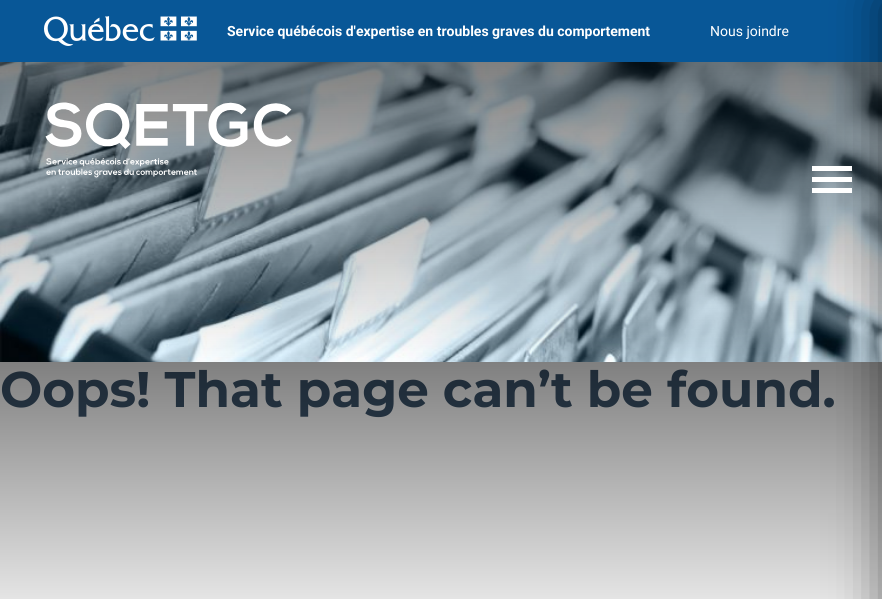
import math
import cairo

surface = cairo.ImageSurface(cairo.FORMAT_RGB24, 882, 599)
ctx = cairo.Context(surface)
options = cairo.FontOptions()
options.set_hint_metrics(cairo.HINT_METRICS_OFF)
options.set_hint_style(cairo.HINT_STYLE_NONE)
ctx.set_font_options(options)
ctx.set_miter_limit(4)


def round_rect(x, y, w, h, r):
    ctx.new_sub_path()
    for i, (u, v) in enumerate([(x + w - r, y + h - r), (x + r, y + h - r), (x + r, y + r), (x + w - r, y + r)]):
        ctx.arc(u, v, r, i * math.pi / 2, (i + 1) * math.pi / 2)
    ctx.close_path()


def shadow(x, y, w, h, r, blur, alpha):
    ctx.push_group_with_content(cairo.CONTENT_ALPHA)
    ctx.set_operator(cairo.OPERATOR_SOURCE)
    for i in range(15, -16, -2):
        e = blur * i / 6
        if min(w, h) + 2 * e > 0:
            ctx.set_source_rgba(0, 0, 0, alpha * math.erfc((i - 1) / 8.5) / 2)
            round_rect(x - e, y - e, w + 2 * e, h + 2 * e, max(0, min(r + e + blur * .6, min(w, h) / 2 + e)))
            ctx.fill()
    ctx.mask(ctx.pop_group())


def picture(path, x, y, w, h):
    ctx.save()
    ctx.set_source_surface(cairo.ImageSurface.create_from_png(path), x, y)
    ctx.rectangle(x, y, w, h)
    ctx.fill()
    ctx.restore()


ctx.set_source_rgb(1, 1, 1)
ctx.paint()
picture("img1.png", 0, 62, 882, 300)
picture("img2.png", 45, 102, 247, 76)
ctx.set_source_rgb(0.035, 0.341, 0.592)
ctx.rectangle(0, 0, 882, 62)
ctx.fill()
ctx.select_font_face("Montserrat", cairo.FONT_SLANT_NORMAL, cairo.FONT_WEIGHT_BOLD)
ctx.set_font_size(50)
ctx.set_source_rgb(0.235, 0.329, 0.42)
ctx.move_to(0, 407)
ctx.show_text("Oops! That page can’t be found.")
gradient = cairo.LinearGradient(441, 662, 441, 362)
gradient.add_color_stop_rgba(0, 0, 0, 0, 0)
gradient.add_color_stop_rgba(1, 0, 0, 0, 0.5)
ctx.set_source(gradient)
ctx.rectangle(0, 362, 882, 237)
ctx.fill()
ctx.set_source_rgb(0, 0, 0)
shadow(882, 0, 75, 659, 0, 25, 0.5)
ctx.set_source_rgb(1, 1, 1)
ctx.rectangle(812, 166, 40, 5)
ctx.fill()
ctx.rectangle(812, 177, 40, 5)
ctx.fill()
ctx.rectangle(812, 188, 40, 5)
ctx.fill()
picture("img3.png", 44, 16, 153, 30)
ctx.select_font_face("Roboto", cairo.FONT_SLANT_NORMAL, cairo.FONT_WEIGHT_BOLD)
ctx.set_font_size(14)
ctx.move_to(227, 36)
ctx.show_text("Service québécois d'expertise en troubles graves du comportement")
ctx.select_font_face("Roboto")
ctx.move_to(710, 36)
ctx.show_text("Nous joindre")
surface.write_to_png("page.png")
